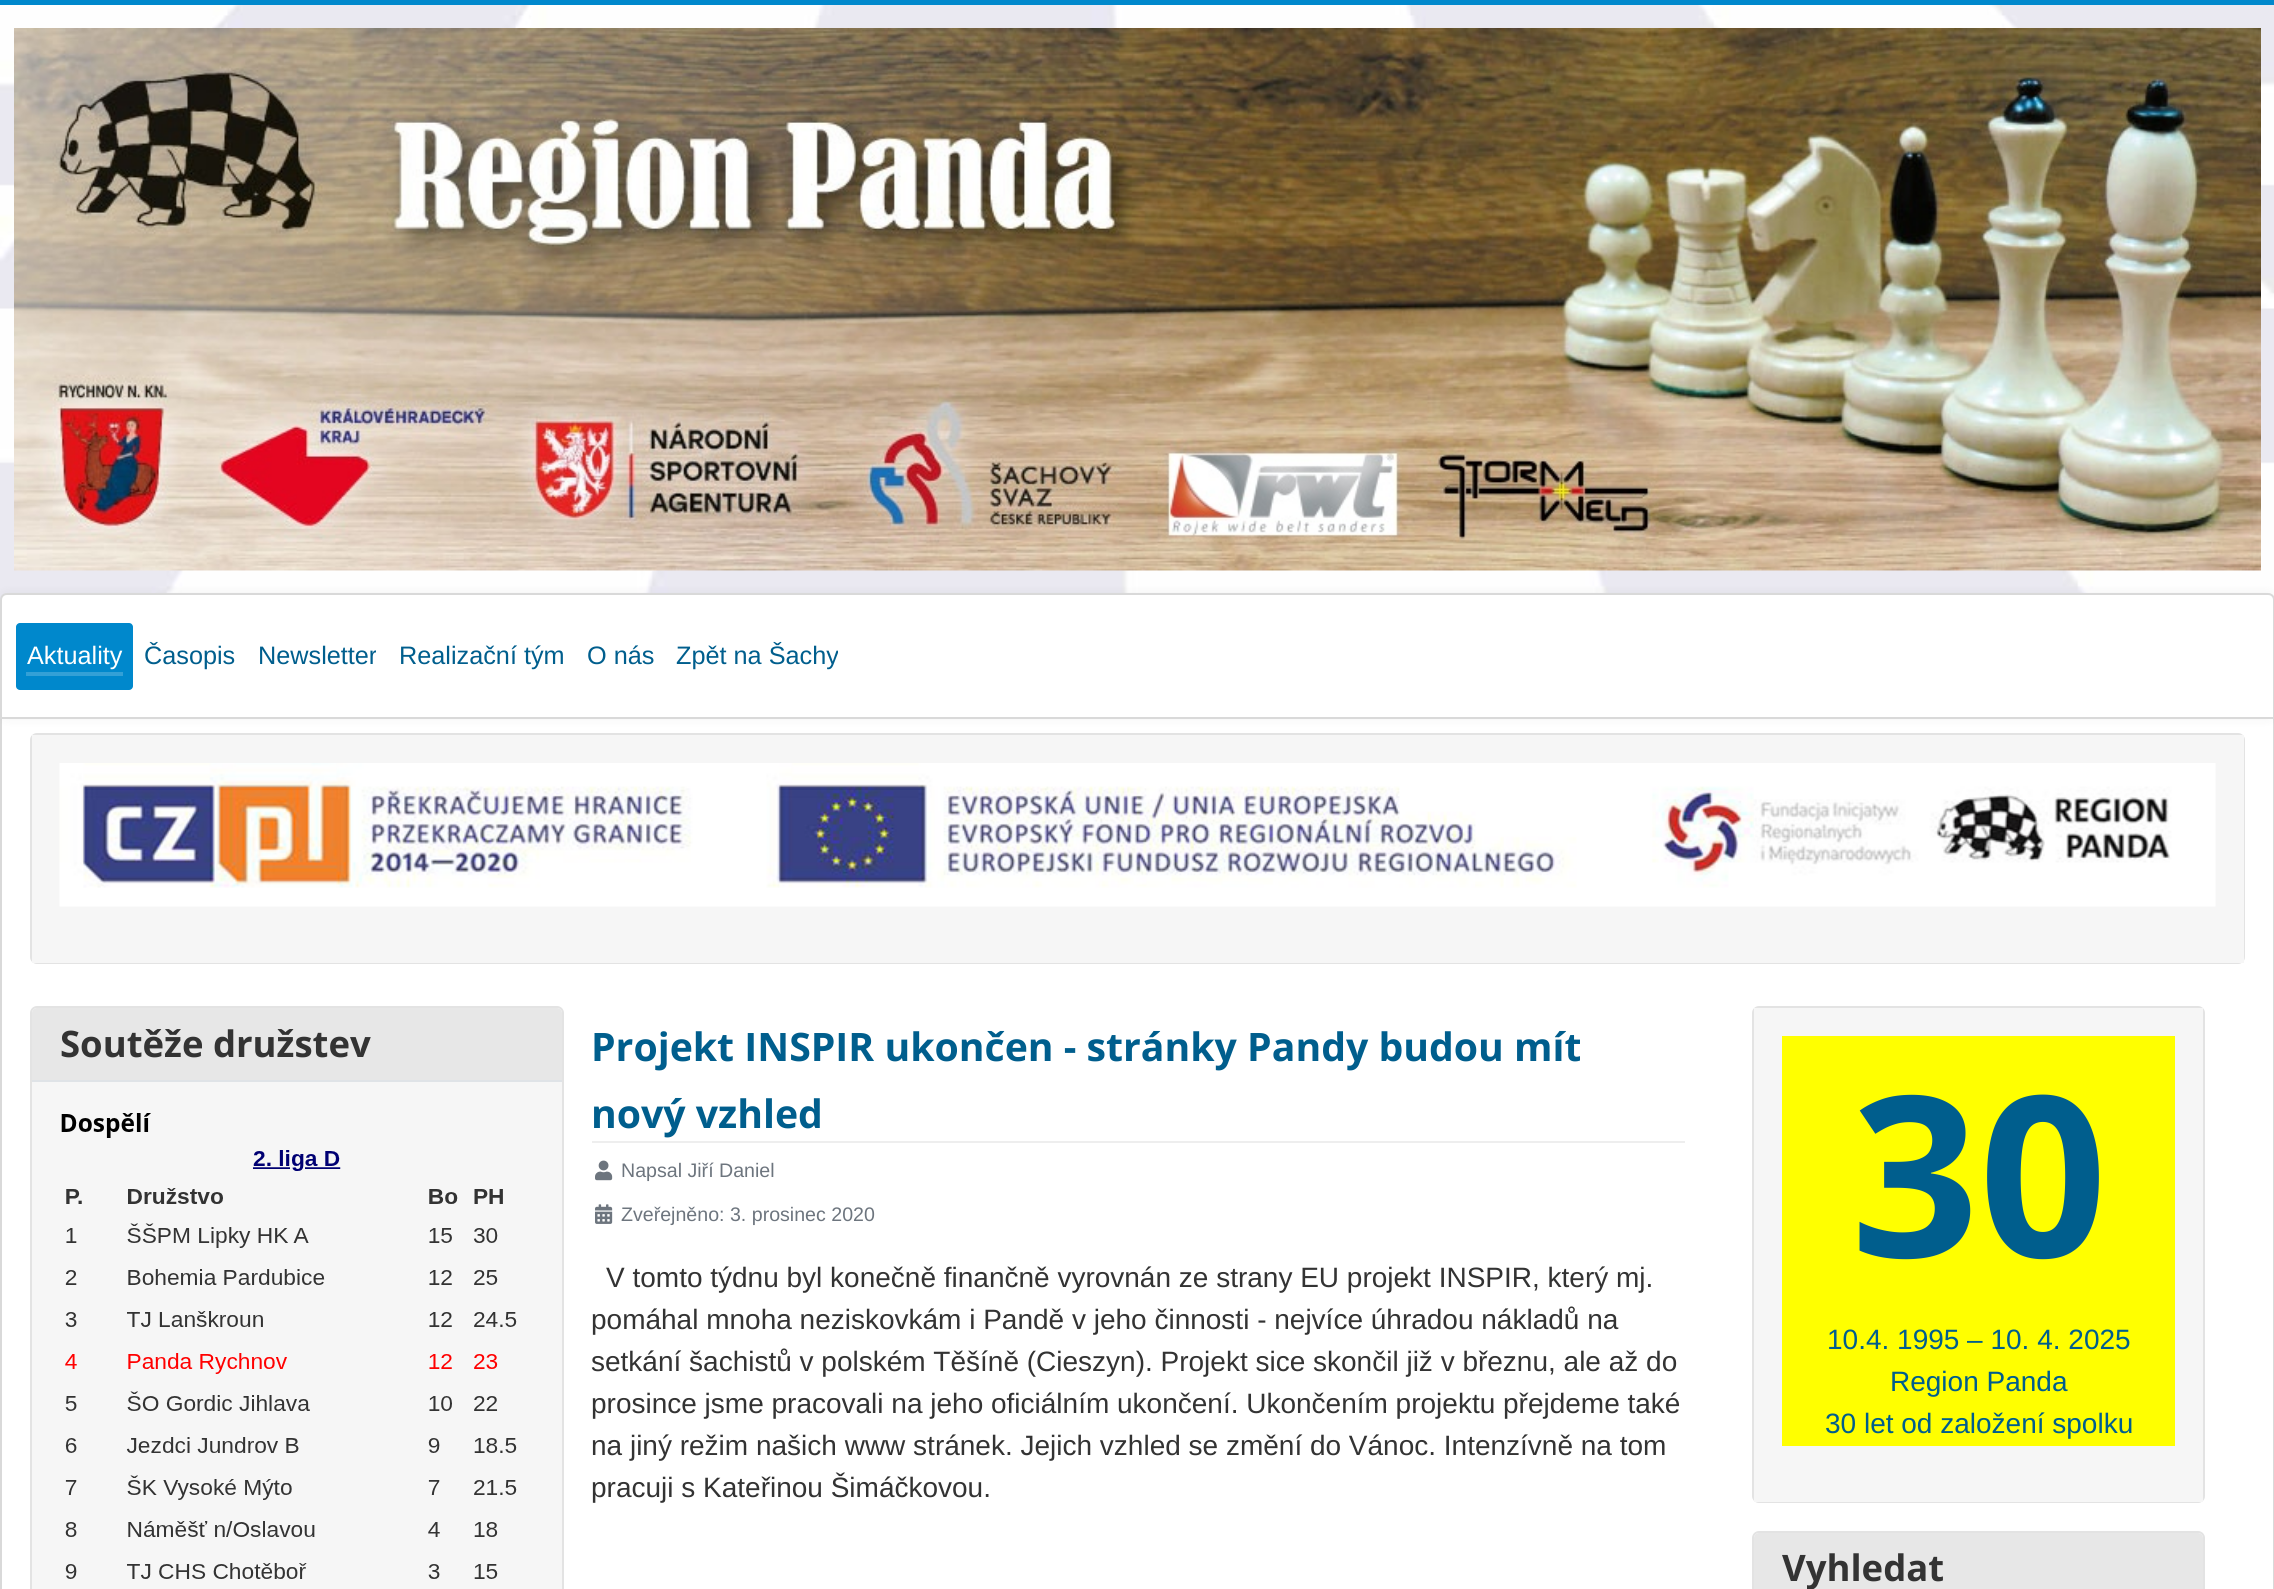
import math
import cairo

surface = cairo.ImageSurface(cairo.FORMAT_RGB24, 2274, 1589)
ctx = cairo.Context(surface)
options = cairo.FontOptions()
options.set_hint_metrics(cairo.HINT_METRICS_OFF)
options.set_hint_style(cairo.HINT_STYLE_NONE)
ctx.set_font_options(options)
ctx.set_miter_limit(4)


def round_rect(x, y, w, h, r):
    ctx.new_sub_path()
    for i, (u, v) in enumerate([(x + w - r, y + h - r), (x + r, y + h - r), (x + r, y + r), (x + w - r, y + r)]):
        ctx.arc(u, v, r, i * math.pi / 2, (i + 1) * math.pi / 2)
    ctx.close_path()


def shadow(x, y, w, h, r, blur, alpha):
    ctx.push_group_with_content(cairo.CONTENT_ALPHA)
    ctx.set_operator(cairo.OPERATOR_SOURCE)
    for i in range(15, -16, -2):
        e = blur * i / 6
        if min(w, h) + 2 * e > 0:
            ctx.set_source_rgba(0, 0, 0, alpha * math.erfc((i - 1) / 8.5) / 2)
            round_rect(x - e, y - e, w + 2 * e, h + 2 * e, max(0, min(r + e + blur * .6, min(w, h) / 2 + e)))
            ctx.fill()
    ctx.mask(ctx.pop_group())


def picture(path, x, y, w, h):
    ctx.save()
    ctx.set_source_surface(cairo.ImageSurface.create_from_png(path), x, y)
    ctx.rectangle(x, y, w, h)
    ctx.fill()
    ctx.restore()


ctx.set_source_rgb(1, 1, 1)
ctx.paint()
picture("img1.png", 0, 5, 2274, 595)
ctx.set_source_rgb(0, 0.533, 0.8)
ctx.rectangle(0, 0, 2274, 5)
ctx.fill()
picture("img2.png", 14, 28, 2247, 543)
ctx.set_source_rgb(0.851, 0.851, 0.851)
ctx.set_fill_rule(cairo.FILL_RULE_EVEN_ODD)
ctx.new_path()
ctx.move_to(0, 719)
ctx.line_to(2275, 719)
ctx.line_to(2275, 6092)
ctx.curve_to(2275, 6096, 2272, 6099, 2268, 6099)
ctx.line_to(7, 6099)
ctx.curve_to(3, 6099, 0, 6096, 0, 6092)
ctx.close_path()
ctx.move_to(2, 719)
ctx.line_to(2273, 719)
ctx.line_to(2273, 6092)
ctx.curve_to(2273, 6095, 2271, 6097, 2268, 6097)
ctx.line_to(7, 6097)
ctx.curve_to(4, 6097, 2, 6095, 2, 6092)
ctx.close_path()
ctx.fill()
round_rect(31, 734, 2213, 229, 6)
ctx.set_source_rgb(0.89, 0.89, 0.89)
ctx.stroke()
ctx.set_source_rgb(0, 0, 0)
shadow(0, 593, 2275, 126, 7, 5, 0.05)
ctx.set_source_rgb(1, 1, 1)
ctx.new_path()
ctx.move_to(7, 593)
ctx.line_to(2268, 593)
ctx.curve_to(2272, 593, 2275, 596, 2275, 600)
ctx.line_to(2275, 719)
ctx.line_to(0, 719)
ctx.line_to(0, 600)
ctx.curve_to(0, 596, 3, 593, 7, 593)
ctx.close_path()
ctx.fill()
ctx.new_path()
ctx.move_to(7, 594)
ctx.line_to(2268, 594)
ctx.curve_to(2271.5, 594, 2274, 596.5, 2274, 600)
ctx.line_to(2274, 718)
ctx.line_to(1, 718)
ctx.line_to(1, 600)
ctx.curve_to(1, 596.5, 3.5, 594, 7, 594)
ctx.close_path()
ctx.set_source_rgba(0, 0, 0, 0.15)
ctx.stroke()
ctx.set_source_rgb(0, 0.533, 0.8)
round_rect(16, 623, 117, 67, 4)
ctx.fill()
ctx.select_font_face("Liberation Sans")
ctx.set_font_size(25.25)
ctx.set_source_rgb(1, 1, 1)
ctx.move_to(27, 664)
ctx.show_text("Aktuality")
ctx.set_source_rgb(0.2, 0.627, 0.839)
ctx.rectangle(26, 672, 97, 4)
ctx.fill()
ctx.set_source_rgb(0, 0.369, 0.553)
ctx.move_to(144, 664)
ctx.show_text("Časopis")
ctx.save()
ctx.set_fill_rule(cairo.FILL_RULE_WINDING)
ctx.rectangle(257, 637, 119, 39)
ctx.clip()
ctx.move_to(258, 664)
ctx.show_text("Newsletter")
ctx.restore()
ctx.move_to(399, 664)
ctx.show_text("Realizační tým")
ctx.move_to(587, 664)
ctx.show_text("O nás")
ctx.save()
ctx.set_fill_rule(cairo.FILL_RULE_WINDING)
ctx.rectangle(676, 637, 162, 39)
ctx.clip()
ctx.move_to(676, 664)
ctx.show_text("Zpět na Šachy")
ctx.restore()
ctx.set_source_rgb(0.961, 0.961, 0.961)
ctx.rectangle(32, 735, 2212, 228)
ctx.fill()
picture("img3.png", 59, 763, 2157, 144)
round_rect(31, 1007, 532, 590, 6)
ctx.set_source_rgb(0.89, 0.89, 0.89)
ctx.stroke()
ctx.set_source_rgb(0.906, 0.906, 0.906)
ctx.new_path()
ctx.move_to(37, 1008)
ctx.line_to(557, 1008)
ctx.curve_to(560, 1008, 562, 1010, 562, 1013)
ctx.line_to(562, 1082)
ctx.line_to(32, 1082)
ctx.line_to(32, 1013)
ctx.curve_to(32, 1010, 34, 1008, 37, 1008)
ctx.close_path()
ctx.fill()
ctx.set_source_rgb(0.875, 0.89, 0.906)
ctx.rectangle(32, 1080, 530, 2)
ctx.fill()
ctx.select_font_face("Open Sans", cairo.FONT_SLANT_NORMAL, cairo.FONT_WEIGHT_BOLD)
ctx.set_font_size(36.5)
ctx.set_source_rgb(0.2, 0.2, 0.2)
ctx.move_to(60, 1057)
ctx.show_text("Soutěže družstev")
ctx.set_source_rgb(0.961, 0.961, 0.961)
ctx.rectangle(32, 1082, 530, 507)
ctx.fill()
picture("img4.png", 61, 1113, 456, 466)
ctx.set_source_rgb(0.933, 0.933, 0.933)
ctx.rectangle(592, 1141, 1093, 2)
ctx.fill()
ctx.set_font_size(39.2)
ctx.set_source_rgb(0, 0.369, 0.553)
ctx.move_to(591, 1061)
ctx.show_text("Projekt INSPIR ukončen - stránky Pandy budou mít")
ctx.move_to(591, 1128)
ctx.show_text("nový vzhled")
picture("img5.png", 595, 1160, 18, 21)
ctx.select_font_face("Liberation Sans")
ctx.set_font_size(19.6)
ctx.set_source_rgb(0.427, 0.459, 0.494)
ctx.move_to(621, 1177)
ctx.show_text("Napsal Jiří Daniel")
picture("img6.png", 595, 1204, 18, 20)
ctx.move_to(621, 1221)
ctx.show_text("Zveřejněno: 3. prosinec 2020")
ctx.set_font_size(28)
ctx.set_source_rgb(0.2, 0.2, 0.2)
ctx.move_to(606, 1287)
ctx.show_text("V tomto týdnu byl konečně finančně vyrovnán ze strany EU projekt INSPIR, který mj.")
ctx.move_to(591, 1329)
ctx.show_text("pomáhal mnoha neziskovkám i Pandě v jeho činnosti - nejvíce úhradou nákladů na")
ctx.move_to(591, 1371)
ctx.show_text("setkání šachistů v polském Těšíně (Cieszyn). Projekt sice skončil již v březnu, ale až do")
ctx.move_to(591, 1413)
ctx.show_text("prosince jsme pracovali na jeho oficiálním ukončení. Ukončením projektu přejdeme také")
ctx.move_to(591, 1455)
ctx.show_text("na jiný režim našich www stránek. Jejich vzhled se změní do Vánoc. Intenzívně na tom")
ctx.move_to(591, 1497)
ctx.show_text("pracuji s Kateřinou Šimáčkovou.")
round_rect(1753, 1007, 451, 495, 6)
ctx.set_source_rgb(0.89, 0.89, 0.89)
ctx.stroke()
ctx.set_source_rgb(0.961, 0.961, 0.961)
ctx.rectangle(1754, 1008, 449, 494)
ctx.fill()
ctx.set_source_rgb(1, 1, 0)
ctx.rectangle(1782, 1036, 393, 410)
ctx.fill()
ctx.select_font_face("Open Sans", cairo.FONT_SLANT_NORMAL, cairo.FONT_WEIGHT_BOLD)
ctx.set_font_size(224)
ctx.set_source_rgb(0, 0.369, 0.553)
ctx.move_to(1851, 1257)
ctx.show_text("30")
ctx.select_font_face("Liberation Sans")
ctx.set_font_size(28)
ctx.move_to(1827, 1349)
ctx.show_text("10.4. 1995 – 10. 4. 2025")
ctx.move_to(1890, 1391)
ctx.show_text("Region Panda")
ctx.move_to(1825, 1433)
ctx.show_text("30 let od založení spolku")
round_rect(1753, 1532, 451, 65, 6)
ctx.set_source_rgb(0.89, 0.89, 0.89)
ctx.stroke()
ctx.set_source_rgb(0.906, 0.906, 0.906)
ctx.new_path()
ctx.move_to(1759, 1533)
ctx.line_to(2198, 1533)
ctx.curve_to(2201, 1533, 2203, 1535, 2203, 1538)
ctx.line_to(2203, 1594)
ctx.line_to(1754, 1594)
ctx.line_to(1754, 1538)
ctx.curve_to(1754, 1535, 1756, 1533, 1759, 1533)
ctx.close_path()
ctx.fill()
ctx.select_font_face("Open Sans", cairo.FONT_SLANT_NORMAL, cairo.FONT_WEIGHT_BOLD)
ctx.set_font_size(36.5)
ctx.set_source_rgb(0.2, 0.2, 0.2)
ctx.move_to(1782, 1581)
ctx.show_text("Vyhledat")
surface.write_to_png("page.png")
